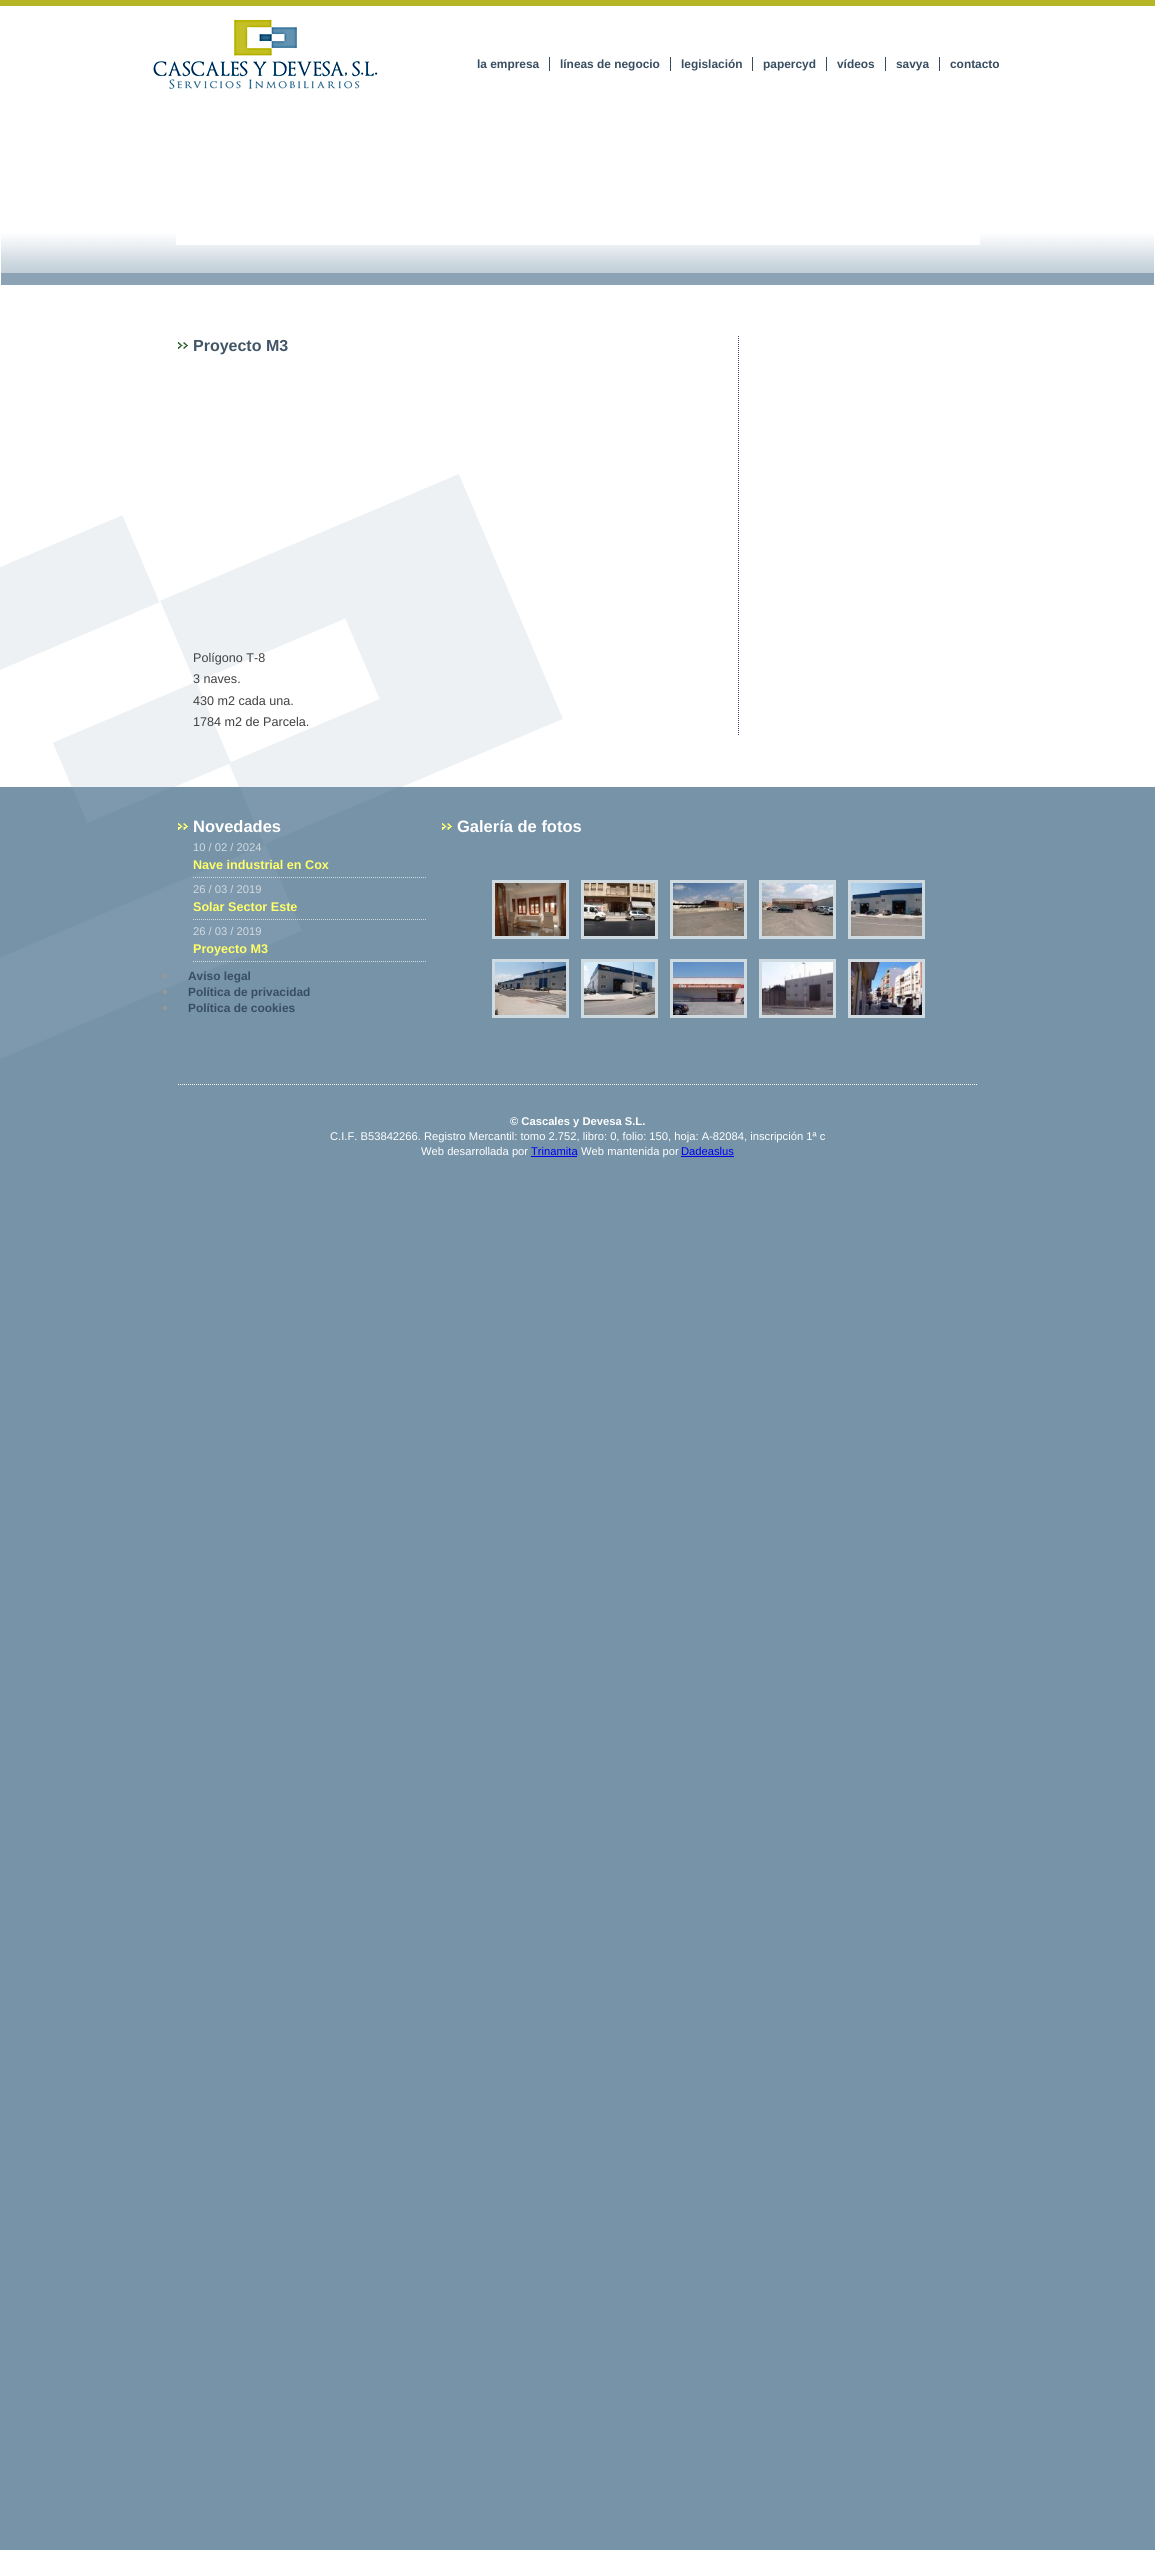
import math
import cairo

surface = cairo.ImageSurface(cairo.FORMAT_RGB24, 1155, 2550)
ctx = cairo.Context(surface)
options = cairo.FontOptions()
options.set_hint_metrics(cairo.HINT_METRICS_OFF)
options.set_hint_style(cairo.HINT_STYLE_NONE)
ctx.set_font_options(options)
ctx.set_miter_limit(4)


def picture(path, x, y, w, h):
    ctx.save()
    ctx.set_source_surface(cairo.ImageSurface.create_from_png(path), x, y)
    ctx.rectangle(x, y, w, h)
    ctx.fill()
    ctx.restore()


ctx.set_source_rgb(0.463, 0.576, 0.659)
ctx.paint()
ctx.set_source_rgb(0.71, 0.71, 0.149)
ctx.rectangle(0, 0, 1155, 6)
ctx.fill()
ctx.set_source_rgb(1, 1, 1)
ctx.rectangle(1, 7, 1153, 227)
ctx.fill()
picture("img1.png", 1, 234, 1153, 51)
ctx.rectangle(0.5, 6.5, 1154, 279)
ctx.set_line_width(1)
ctx.stroke()
ctx.rectangle(176, 234, 804, 11)
ctx.fill()
picture("img2.png", 151, 17, 228, 75)
ctx.set_source_rgb(0.22, 0.302, 0.376)
ctx.rectangle(549, 57, 1, 14)
ctx.fill()
ctx.select_font_face("Liberation Sans", cairo.FONT_SLANT_NORMAL, cairo.FONT_WEIGHT_BOLD)
ctx.set_font_size(11.9)
ctx.move_to(477, 68)
ctx.show_text("la empresa")
ctx.rectangle(670, 57, 1, 14)
ctx.fill()
ctx.move_to(560, 68)
ctx.show_text("líneas de negocio")
ctx.rectangle(752, 57, 1, 14)
ctx.fill()
ctx.move_to(681, 68)
ctx.show_text("legislación")
ctx.rectangle(826, 57, 1, 14)
ctx.fill()
ctx.move_to(763, 68)
ctx.show_text("papercyd")
ctx.rectangle(885, 57, 1, 14)
ctx.fill()
ctx.move_to(837, 68)
ctx.show_text("vídeos")
ctx.rectangle(939, 57, 1, 14)
ctx.fill()
ctx.move_to(896, 68)
ctx.show_text("savya")
ctx.move_to(950, 68)
ctx.show_text("contacto")
ctx.set_source_rgb(1, 1, 1)
ctx.rectangle(0, 286, 1155, 501)
ctx.fill()
picture("img3.png", 0, 474, 563, 313)
ctx.new_path()
ctx.move_to(738.5, 336)
ctx.line_to(738.5, 736)
ctx.set_source_rgb(0.22, 0.302, 0.376)
ctx.set_dash([1, 1])
ctx.stroke()
picture("img4.png", 178, 342, 10, 7)
ctx.set_font_size(16)
ctx.set_source_rgb(0.255, 0.333, 0.404)
ctx.move_to(193, 351)
ctx.show_text("Proyecto M3")
ctx.select_font_face("Liberation Sans")
ctx.set_font_size(12.6)
ctx.set_source_rgb(0.251, 0.251, 0.251)
ctx.move_to(193, 662)
ctx.show_text("Polígono T-8")
ctx.move_to(193, 683)
ctx.show_text("3 naves.")
ctx.move_to(193, 705)
ctx.show_text("430 m2 cada una.")
ctx.move_to(193, 726)
ctx.show_text("1784 m2 de Parcela.")
picture("img5.png", 0, 787, 398, 272)
picture("img6.png", 178, 823, 10, 7)
ctx.select_font_face("Liberation Sans", cairo.FONT_SLANT_NORMAL, cairo.FONT_WEIGHT_BOLD)
ctx.set_font_size(16.5)
ctx.set_source_rgb(1, 1, 1)
ctx.move_to(193, 832)
ctx.show_text("Novedades")
ctx.select_font_face("Liberation Sans")
ctx.set_font_size(11.2)
ctx.set_source_rgb(0.816, 0.855, 0.882)
ctx.move_to(193, 851)
ctx.show_text("10 / 02 / 2024")
ctx.new_path()
ctx.move_to(193, 877.5)
ctx.line_to(427, 877.5)
ctx.stroke()
ctx.select_font_face("Liberation Sans", cairo.FONT_SLANT_NORMAL, cairo.FONT_WEIGHT_BOLD)
ctx.set_font_size(12.6)
ctx.set_source_rgb(1, 1, 0.4)
ctx.move_to(193, 869)
ctx.show_text("Nave industrial en Cox")
ctx.select_font_face("Liberation Sans")
ctx.set_font_size(11.2)
ctx.set_source_rgb(0.816, 0.855, 0.882)
ctx.move_to(193, 893)
ctx.show_text("26 / 03 / 2019")
ctx.new_path()
ctx.move_to(193, 919.5)
ctx.line_to(427, 919.5)
ctx.stroke()
ctx.select_font_face("Liberation Sans", cairo.FONT_SLANT_NORMAL, cairo.FONT_WEIGHT_BOLD)
ctx.set_font_size(12.6)
ctx.set_source_rgb(1, 1, 0.4)
ctx.move_to(193, 911)
ctx.show_text("Solar Sector Este")
ctx.select_font_face("Liberation Sans")
ctx.set_font_size(11.2)
ctx.set_source_rgb(0.816, 0.855, 0.882)
ctx.move_to(193, 935)
ctx.show_text("26 / 03 / 2019")
ctx.new_path()
ctx.move_to(193, 961.5)
ctx.line_to(427, 961.5)
ctx.stroke()
ctx.select_font_face("Liberation Sans", cairo.FONT_SLANT_NORMAL, cairo.FONT_WEIGHT_BOLD)
ctx.set_font_size(12.6)
ctx.set_source_rgb(1, 1, 0.4)
ctx.move_to(193, 953)
ctx.show_text("Proyecto M3")
ctx.set_source_rgb(0.6, 0.6, 0.6)
ctx.new_path()
ctx.arc(165, 976, 2, 0, 2 * math.pi)
ctx.fill()
ctx.set_font_size(11.9)
ctx.set_source_rgb(0.22, 0.302, 0.376)
ctx.move_to(188, 980)
ctx.show_text("Aviso legal")
ctx.set_source_rgb(0.6, 0.6, 0.6)
ctx.new_path()
ctx.arc(165, 992, 2, 0, 2 * math.pi)
ctx.fill()
ctx.set_source_rgb(0.22, 0.302, 0.376)
ctx.move_to(188, 996)
ctx.show_text("Política de privacidad")
ctx.set_source_rgb(0.6, 0.6, 0.6)
ctx.new_path()
ctx.arc(165, 1008, 2, 0, 2 * math.pi)
ctx.fill()
ctx.set_source_rgb(0.22, 0.302, 0.376)
ctx.move_to(188, 1012)
ctx.show_text("Política de cookies")
picture("img6.png", 442, 823, 10, 7)
ctx.set_font_size(16.5)
ctx.set_source_rgb(1, 1, 1)
ctx.move_to(457, 832)
ctx.show_text("Galería de fotos")
ctx.rectangle(493.5, 881.5, 74, 56)
ctx.set_source_rgb(0.816, 0.855, 0.882)
ctx.set_line_width(3)
ctx.set_dash([])
ctx.stroke()
picture("img7.png", 495, 883, 71, 53)
ctx.rectangle(582.5, 881.5, 74, 56)
ctx.stroke()
picture("img8.png", 584, 883, 71, 53)
ctx.rectangle(671.5, 881.5, 74, 56)
ctx.stroke()
picture("img9.png", 673, 883, 71, 53)
ctx.rectangle(760.5, 881.5, 74, 56)
ctx.stroke()
picture("img10.png", 762, 883, 71, 53)
ctx.rectangle(849.5, 881.5, 74, 56)
ctx.stroke()
picture("img11.png", 851, 883, 71, 53)
ctx.rectangle(493.5, 960.5, 74, 56)
ctx.stroke()
picture("img12.png", 495, 962, 71, 53)
ctx.rectangle(582.5, 960.5, 74, 56)
ctx.stroke()
picture("img13.png", 584, 962, 71, 53)
ctx.rectangle(671.5, 960.5, 74, 56)
ctx.stroke()
picture("img14.png", 673, 962, 71, 53)
ctx.rectangle(760.5, 960.5, 74, 56)
ctx.stroke()
picture("img15.png", 762, 962, 71, 53)
ctx.rectangle(849.5, 960.5, 74, 56)
ctx.stroke()
picture("img16.png", 851, 962, 71, 53)
ctx.new_path()
ctx.move_to(178, 1084.5)
ctx.line_to(978, 1084.5)
ctx.set_source_rgb(1, 1, 1)
ctx.set_line_width(1)
ctx.set_dash([1, 1])
ctx.stroke()
ctx.set_font_size(11.2)
ctx.move_to(510, 1125)
ctx.show_text("© Cascales y Devesa S.L.")
ctx.select_font_face("Liberation Sans")
ctx.move_to(330, 1140)
ctx.show_text("C.I.F. B53842266. Registro Mercantil: tomo 2.752, libro: 0, folio: 150, hoja: A-82084, inscripción 1ª c")
ctx.move_to(421, 1155)
ctx.show_text("Web desarrollada por")
ctx.set_source_rgb(0, 0, 0.933)
ctx.move_to(531, 1155)
ctx.show_text("Trinamita")
ctx.rectangle(531, 1156, 46, 1)
ctx.fill()
ctx.set_source_rgb(1, 1, 1)
ctx.move_to(581, 1155)
ctx.show_text("Web mantenida por")
ctx.set_source_rgb(0, 0, 0.933)
ctx.move_to(681, 1155)
ctx.show_text("Dadeaslus")
ctx.rectangle(681, 1156, 53, 1)
ctx.fill()
surface.write_to_png("page.png")
